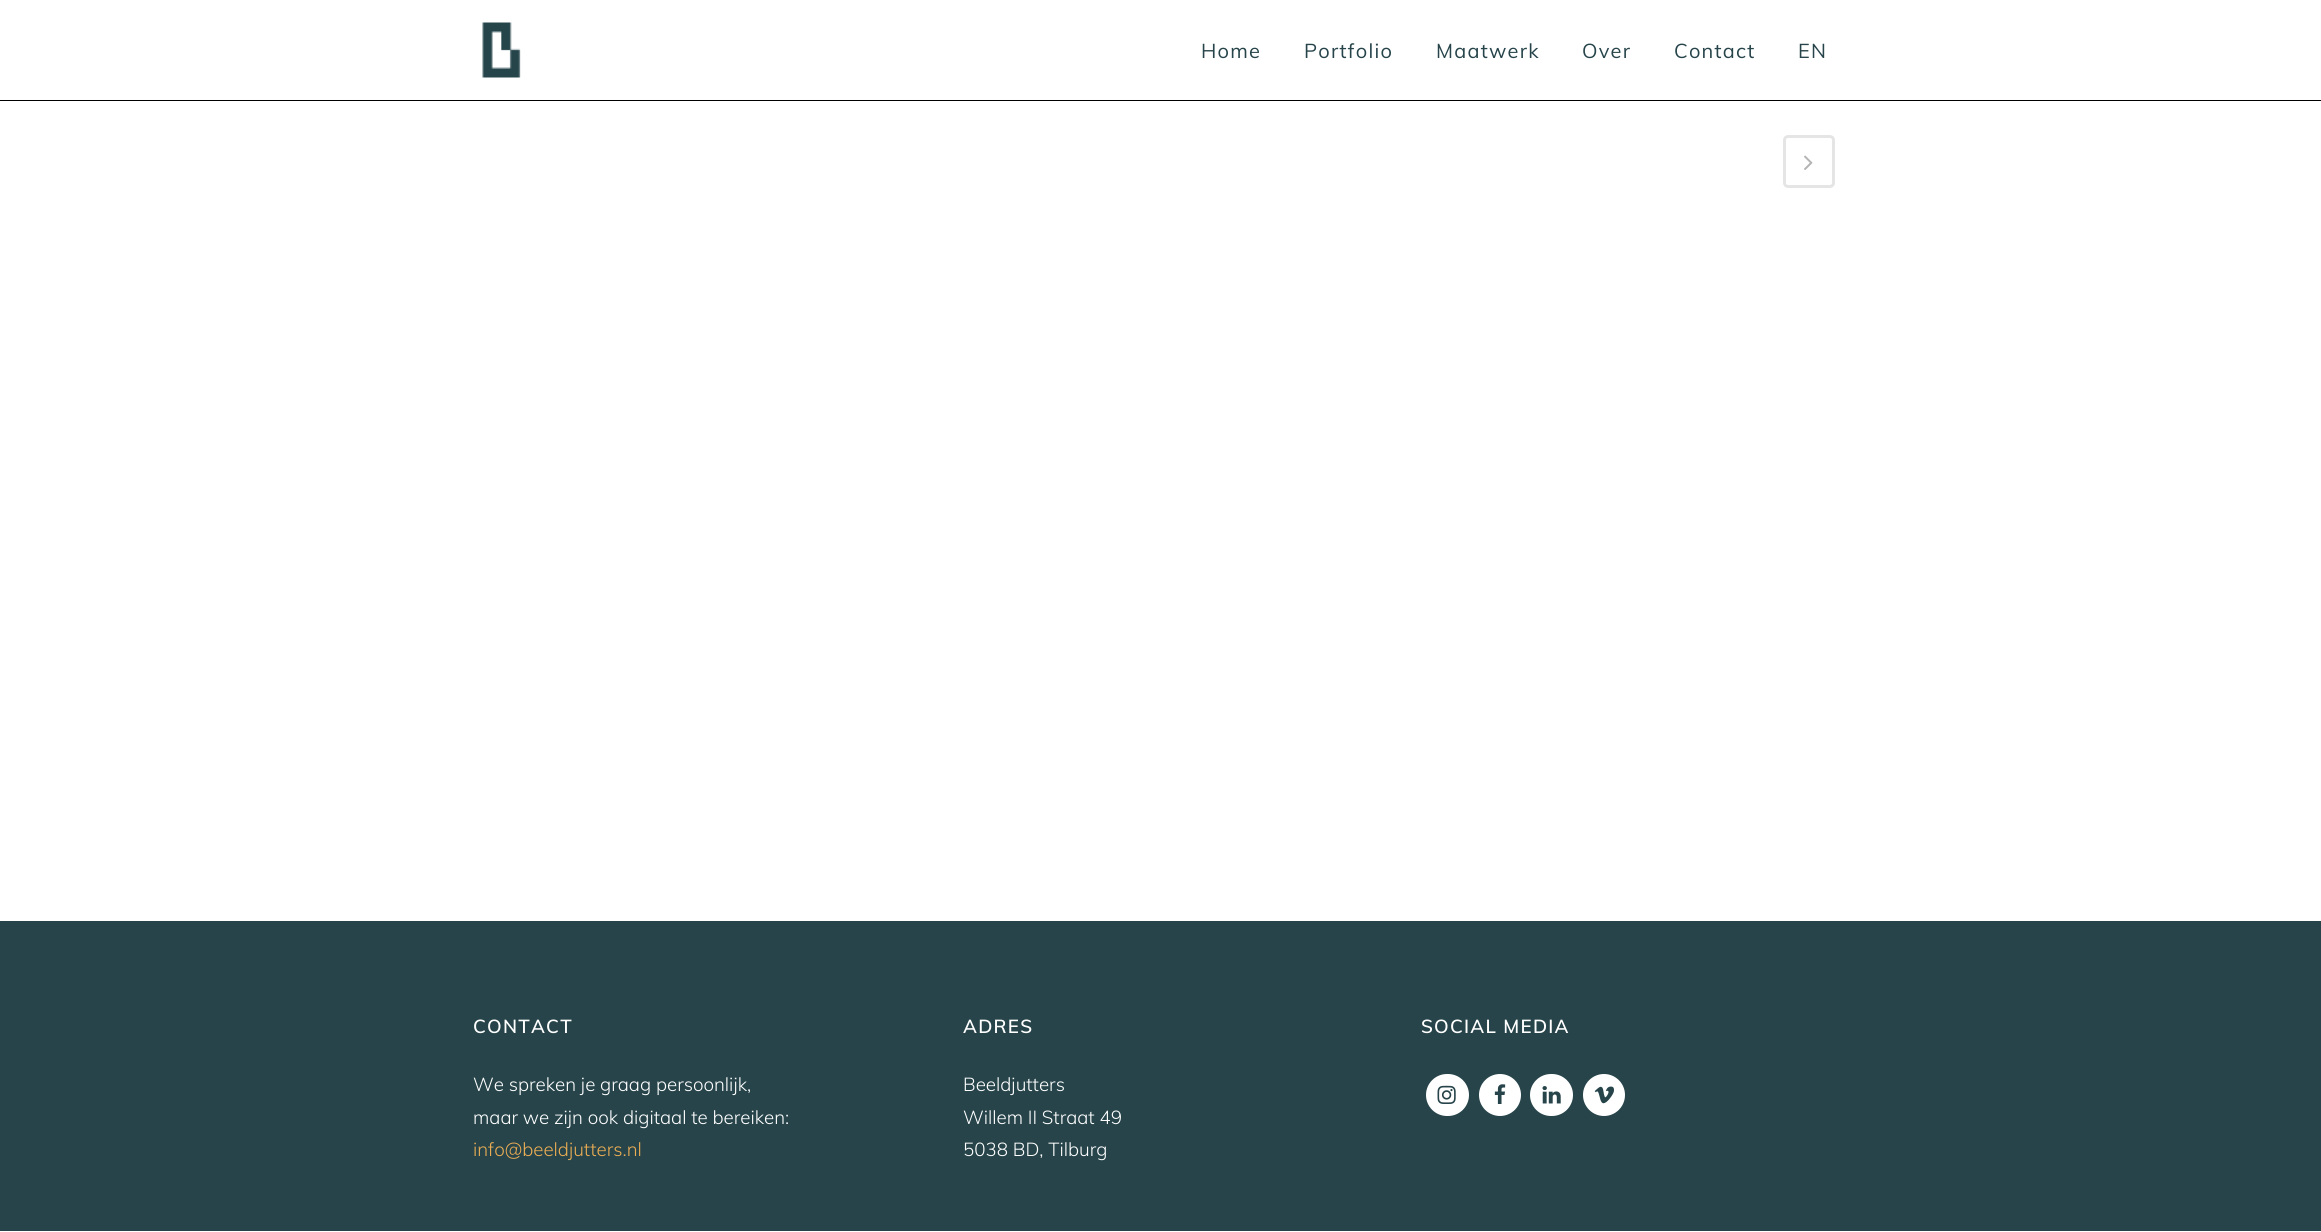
import math
import cairo

surface = cairo.ImageSurface(cairo.FORMAT_RGB24, 2321, 1232)
ctx = cairo.Context(surface)
options = cairo.FontOptions()
options.set_hint_metrics(cairo.HINT_METRICS_OFF)
options.set_hint_style(cairo.HINT_STYLE_NONE)
ctx.set_font_options(options)
ctx.set_miter_limit(4)


def spaced_text(x, y, s, letter, word):
    ctx.move_to(x, y)
    for ch in s:
        ctx.show_text(ch)
        ctx.rel_move_to(letter + word * (ch == ' '), 0)


def round_rect(x, y, w, h, r):
    ctx.new_sub_path()
    for i, (u, v) in enumerate([(x + w - r, y + h - r), (x + r, y + h - r), (x + r, y + r), (x + w - r, y + r)]):
        ctx.arc(u, v, r, i * math.pi / 2, (i + 1) * math.pi / 2)
    ctx.close_path()


def picture(path, x, y, w, h):
    ctx.save()
    ctx.set_source_surface(cairo.ImageSurface.create_from_png(path), x, y)
    ctx.rectangle(x, y, w, h)
    ctx.fill()
    ctx.restore()


ctx.set_source_rgb(1, 1, 1)
ctx.paint()
ctx.set_source_rgb(0, 0, 0)
ctx.rectangle(0, 100, 2321, 1)
ctx.fill()
picture("img1.png", 482, 22, 39, 56)
ctx.select_font_face("Muli")
ctx.set_font_size(20)
ctx.set_source_rgb(0.149, 0.267, 0.29)
spaced_text(1201, 58, "Home", 1.25, 0)
spaced_text(1304, 58, "Portfolio", 1.25, 0)
spaced_text(1436, 58, "Maatwerk", 1.25, 0)
spaced_text(1582, 58, "Over", 1.25, 0)
spaced_text(1674, 58, "Contact", 1.25, 0)
spaced_text(1798, 58, "EN", 1.25, 0)
round_rect(1784.5, 136.5, 49, 50, 3.5)
ctx.set_source_rgb(0.898, 0.898, 0.898)
ctx.set_line_width(3)
ctx.stroke()
picture("img2.png", 1804, 155, 9, 15)
ctx.set_source_rgb(0.149, 0.267, 0.29)
ctx.rectangle(0, 921, 2321, 310)
ctx.fill()
ctx.select_font_face("Muli SemiBold")
ctx.set_font_size(18.75)
ctx.set_source_rgb(1, 1, 1)
spaced_text(473, 1033, "CONTACT", 1.25, 0)
ctx.select_font_face("Muli Light")
ctx.move_to(473, 1091)
ctx.show_text("We spreken je graag persoonlijk,")
ctx.move_to(473, 1124)
ctx.show_text("maar we zijn ook digitaal te bereiken:")
ctx.set_source_rgb(0.918, 0.678, 0.329)
ctx.move_to(473, 1156)
ctx.show_text("info@beeldjutters.nl")
ctx.select_font_face("Muli SemiBold")
ctx.set_source_rgb(1, 1, 1)
spaced_text(963, 1033, "ADRES", 1.25, 0)
ctx.select_font_face("Muli Light")
ctx.move_to(963, 1091)
ctx.show_text("Beeldjutters")
ctx.move_to(963, 1124)
ctx.show_text("Willem II Straat 49")
ctx.move_to(963, 1156)
ctx.show_text("5038 BD, Tilburg")
ctx.select_font_face("Muli SemiBold")
spaced_text(1421, 1033, "SOCIAL MEDIA", 1.25, 0)
round_rect(1426, 1074, 43, 42, 21)
ctx.fill()
picture("img3.png", 1437, 1085, 19, 19)
ctx.arc(1500, 1095, 21, 0, 2 * math.pi)
ctx.fill()
picture("img4.png", 1494, 1084, 12, 20)
round_rect(1530, 1074, 43, 42, 21)
ctx.fill()
picture("img5.png", 1542, 1086, 19, 18)
ctx.arc(1604, 1095, 21, 0, 2 * math.pi)
ctx.fill()
picture("img6.png", 1594, 1086, 20, 18)
surface.write_to_png("page.png")
